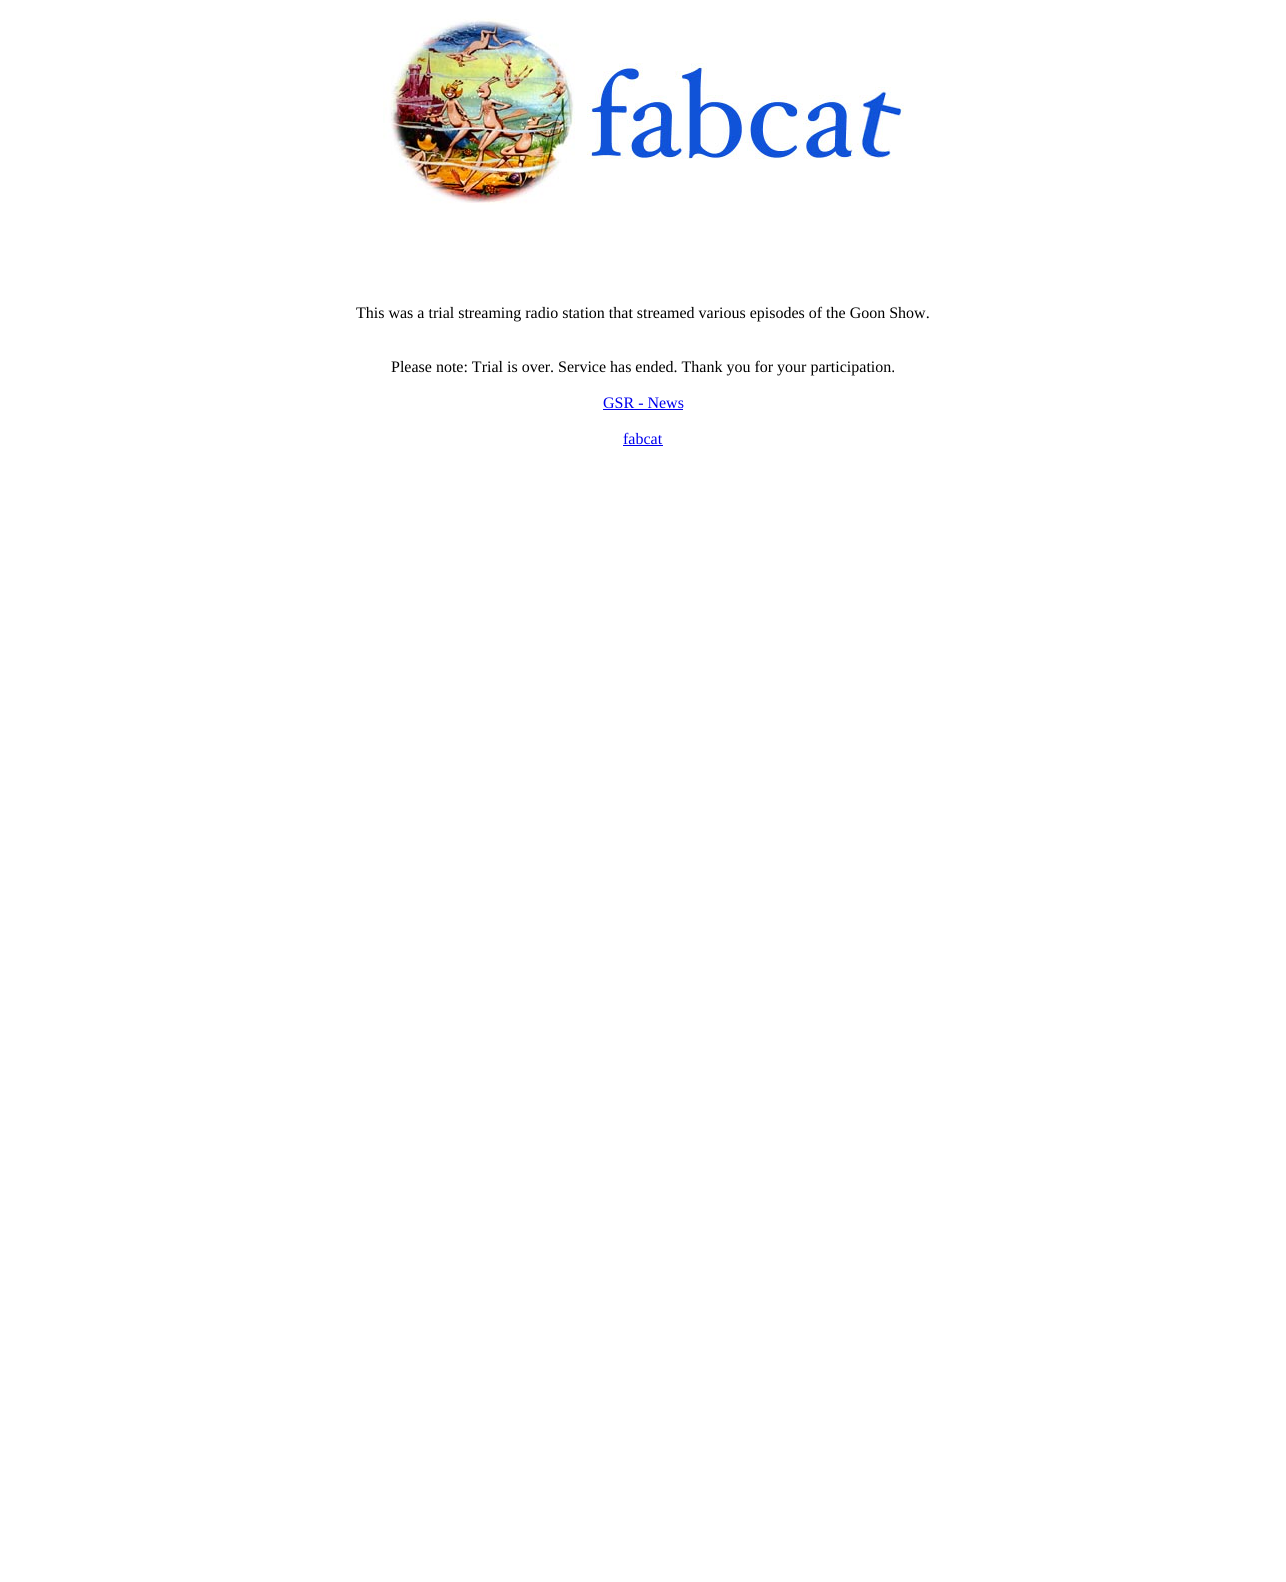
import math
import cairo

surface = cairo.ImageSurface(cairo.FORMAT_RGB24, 1286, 1582)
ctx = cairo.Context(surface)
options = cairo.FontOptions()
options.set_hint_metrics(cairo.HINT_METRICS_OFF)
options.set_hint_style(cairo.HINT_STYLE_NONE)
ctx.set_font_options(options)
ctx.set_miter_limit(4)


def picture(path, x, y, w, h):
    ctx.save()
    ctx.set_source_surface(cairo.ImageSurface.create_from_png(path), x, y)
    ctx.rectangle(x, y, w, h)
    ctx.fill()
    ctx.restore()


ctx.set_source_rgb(1, 1, 1)
ctx.paint()
picture("img1.png", 383, 18, 192, 187)
picture("img2.png", 587, 63, 317, 96)
ctx.select_font_face("Liberation Serif")
ctx.set_font_size(16)
ctx.set_source_rgb(0, 0, 0)
ctx.move_to(356, 318)
ctx.show_text("This was a trial streaming radio station that streamed various episodes of the Goon Show.")
ctx.move_to(391, 372)
ctx.show_text("Please note: Trial is over. Service has ended. Thank you for your participation.")
ctx.set_source_rgb(0, 0, 0.933)
ctx.move_to(603, 408)
ctx.show_text("GSR - News")
ctx.rectangle(603, 409, 80, 1)
ctx.fill()
ctx.move_to(623, 444)
ctx.show_text("fabcat")
ctx.rectangle(623, 445, 40, 1)
ctx.fill()
surface.write_to_png("page.png")
